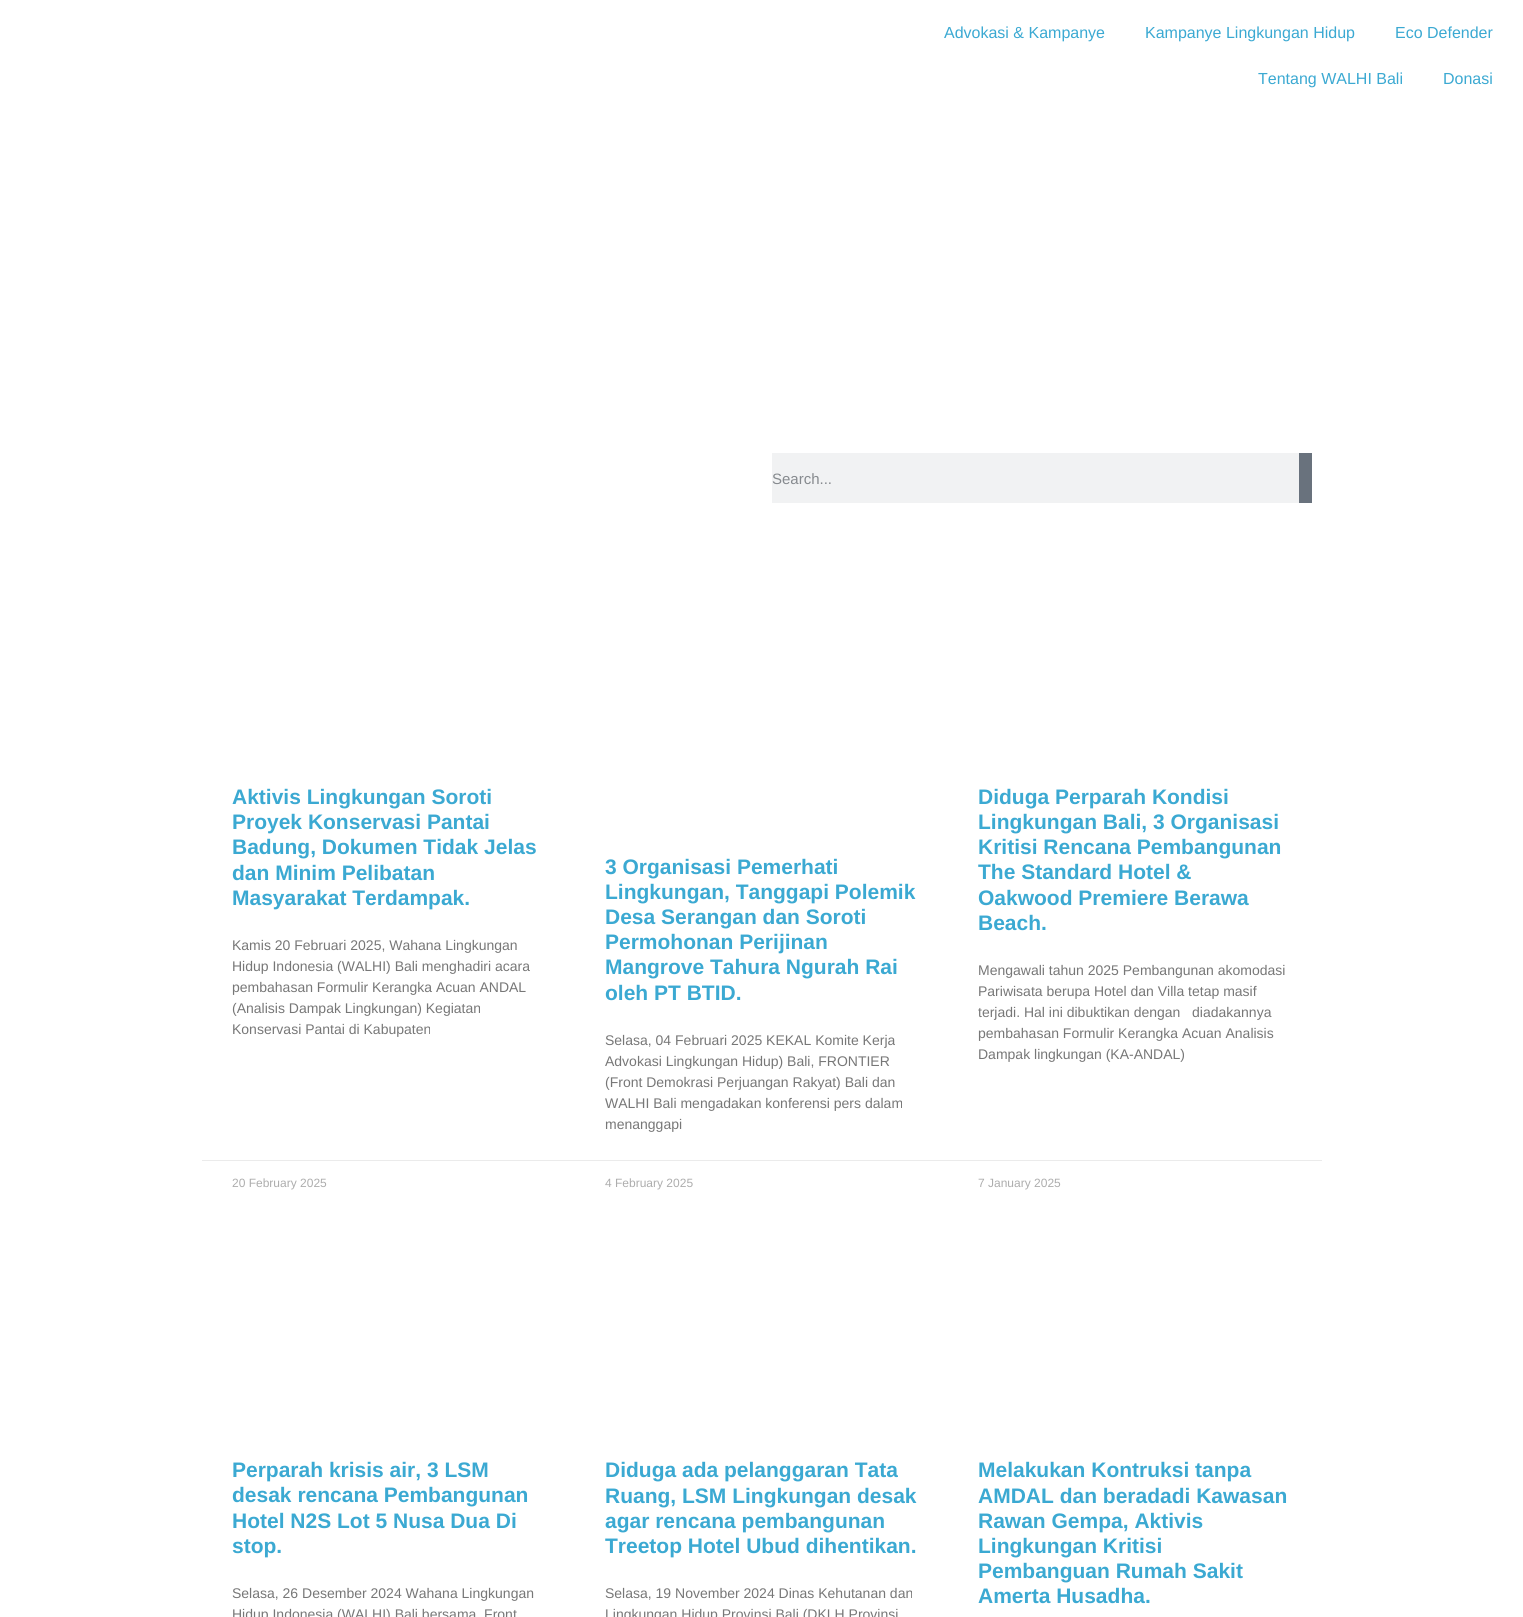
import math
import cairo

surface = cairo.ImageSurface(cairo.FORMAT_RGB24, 1523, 1617)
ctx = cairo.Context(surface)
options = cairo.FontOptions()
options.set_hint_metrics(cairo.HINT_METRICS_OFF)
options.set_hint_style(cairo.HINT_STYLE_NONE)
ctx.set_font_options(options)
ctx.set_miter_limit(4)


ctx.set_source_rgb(1, 1, 1)
ctx.paint()
ctx.select_font_face("Liberation Sans")
ctx.set_font_size(16)
ctx.set_source_rgb(0.231, 0.663, 0.824)
ctx.move_to(944, 38)
ctx.show_text("Advokasi & Kampanye")
ctx.move_to(1145, 38)
ctx.show_text("Kampanye Lingkungan Hidup")
ctx.move_to(1395, 38)
ctx.show_text("Eco Defender")
ctx.move_to(1258, 84)
ctx.show_text("Tentang WALHI Bali")
ctx.move_to(1443, 84)
ctx.show_text("Donasi")
ctx.set_source_rgb(0.945, 0.949, 0.953)
ctx.rectangle(772, 453, 527, 50)
ctx.fill()
ctx.set_font_size(15)
ctx.set_source_rgb(0.525, 0.541, 0.557)
ctx.move_to(772, 484)
ctx.show_text("Search...")
ctx.set_source_rgb(0.412, 0.447, 0.49)
ctx.rectangle(1299, 453, 13, 50)
ctx.fill()
ctx.select_font_face("Liberation Sans", cairo.FONT_SLANT_NORMAL, cairo.FONT_WEIGHT_BOLD)
ctx.set_font_size(21)
ctx.set_source_rgb(0.231, 0.663, 0.824)
ctx.move_to(232, 804)
ctx.show_text("Aktivis Lingkungan Soroti")
ctx.move_to(232, 829)
ctx.show_text("Proyek Konservasi Pantai")
ctx.move_to(232, 854)
ctx.show_text("Badung, Dokumen Tidak Jelas")
ctx.move_to(232, 880)
ctx.show_text("dan Minim Pelibatan")
ctx.move_to(232, 905)
ctx.show_text("Masyarakat Terdampak.")
ctx.select_font_face("Liberation Sans")
ctx.set_font_size(14)
ctx.set_source_rgb(0.467, 0.467, 0.467)
ctx.move_to(232, 950)
ctx.show_text("Kamis 20 Februari 2025, Wahana Lingkungan")
ctx.move_to(232, 971)
ctx.show_text("Hidup Indonesia (WALHI) Bali menghadiri acara")
ctx.move_to(232, 992)
ctx.show_text("pembahasan Formulir Kerangka Acuan ANDAL")
ctx.move_to(232, 1013)
ctx.show_text("(Analisis Dampak Lingkungan) Kegiatan")
ctx.move_to(232, 1034)
ctx.show_text("Konservasi Pantai di Kabupaten")
ctx.set_source_rgb(0.918, 0.918, 0.918)
ctx.rectangle(202, 1160, 1120, 1)
ctx.fill()
ctx.set_font_size(12)
ctx.set_source_rgb(0.678, 0.678, 0.678)
ctx.move_to(232, 1187)
ctx.show_text("20 February 2025")
ctx.select_font_face("Liberation Sans", cairo.FONT_SLANT_NORMAL, cairo.FONT_WEIGHT_BOLD)
ctx.set_font_size(21)
ctx.set_source_rgb(0.231, 0.663, 0.824)
ctx.move_to(605, 874)
ctx.show_text("3 Organisasi Pemerhati")
ctx.move_to(605, 899)
ctx.show_text("Lingkungan, Tanggapi Polemik")
ctx.move_to(605, 924)
ctx.show_text("Desa Serangan dan Soroti")
ctx.move_to(605, 949)
ctx.show_text("Permohonan Perijinan")
ctx.move_to(605, 974)
ctx.show_text("Mangrove Tahura Ngurah Rai")
ctx.move_to(605, 1000)
ctx.show_text("oleh PT BTID.")
ctx.select_font_face("Liberation Sans")
ctx.set_font_size(14)
ctx.set_source_rgb(0.467, 0.467, 0.467)
ctx.move_to(605, 1045)
ctx.show_text("Selasa, 04 Februari 2025 KEKAL Komite Kerja")
ctx.move_to(605, 1066)
ctx.show_text("Advokasi Lingkungan Hidup) Bali, FRONTIER")
ctx.move_to(605, 1087)
ctx.show_text("(Front Demokrasi Perjuangan Rakyat) Bali dan")
ctx.move_to(605, 1108)
ctx.show_text("WALHI Bali mengadakan konferensi pers dalam")
ctx.move_to(605, 1129)
ctx.show_text("menanggapi")
ctx.set_font_size(12)
ctx.set_source_rgb(0.678, 0.678, 0.678)
ctx.move_to(605, 1187)
ctx.show_text("4 February 2025")
ctx.select_font_face("Liberation Sans", cairo.FONT_SLANT_NORMAL, cairo.FONT_WEIGHT_BOLD)
ctx.set_font_size(21)
ctx.set_source_rgb(0.231, 0.663, 0.824)
ctx.move_to(978, 804)
ctx.show_text("Diduga Perparah Kondisi")
ctx.move_to(978, 829)
ctx.show_text("Lingkungan Bali, 3 Organisasi")
ctx.move_to(978, 854)
ctx.show_text("Kritisi Rencana Pembangunan")
ctx.move_to(978, 879)
ctx.show_text("The Standard Hotel &")
ctx.move_to(978, 905)
ctx.show_text("Oakwood Premiere Berawa")
ctx.move_to(978, 930)
ctx.show_text("Beach.")
ctx.select_font_face("Liberation Sans")
ctx.set_font_size(14)
ctx.set_source_rgb(0.467, 0.467, 0.467)
ctx.move_to(978, 975)
ctx.show_text("Mengawali tahun 2025 Pembangunan akomodasi")
ctx.move_to(978, 996)
ctx.show_text("Pariwisata berupa Hotel dan Villa tetap masif")
ctx.move_to(978, 1017)
ctx.show_text("terjadi. Hal ini dibuktikan dengan   diadakannya")
ctx.move_to(978, 1038)
ctx.show_text("pembahasan Formulir Kerangka Acuan Analisis")
ctx.move_to(978, 1059)
ctx.show_text("Dampak lingkungan (KA-ANDAL)")
ctx.set_font_size(12)
ctx.set_source_rgb(0.678, 0.678, 0.678)
ctx.move_to(978, 1187)
ctx.show_text("7 January 2025")
ctx.select_font_face("Liberation Sans", cairo.FONT_SLANT_NORMAL, cairo.FONT_WEIGHT_BOLD)
ctx.set_font_size(21)
ctx.set_source_rgb(0.231, 0.663, 0.824)
ctx.move_to(232, 1477)
ctx.show_text("Perparah krisis air, 3 LSM")
ctx.move_to(232, 1502)
ctx.show_text("desak rencana Pembangunan")
ctx.move_to(232, 1528)
ctx.show_text("Hotel N2S Lot 5 Nusa Dua Di")
ctx.move_to(232, 1553)
ctx.show_text("stop.")
ctx.select_font_face("Liberation Sans")
ctx.set_font_size(14)
ctx.set_source_rgb(0.467, 0.467, 0.467)
ctx.move_to(232, 1598)
ctx.show_text("Selasa, 26 Desember 2024 Wahana Lingkungan")
ctx.move_to(232, 1619)
ctx.show_text("Hidup Indonesia (WALHI) Bali bersama  Front")
ctx.select_font_face("Liberation Sans", cairo.FONT_SLANT_NORMAL, cairo.FONT_WEIGHT_BOLD)
ctx.set_font_size(21)
ctx.set_source_rgb(0.231, 0.663, 0.824)
ctx.move_to(605, 1477)
ctx.show_text("Diduga ada pelanggaran Tata")
ctx.move_to(605, 1503)
ctx.show_text("Ruang, LSM Lingkungan desak")
ctx.move_to(605, 1528)
ctx.show_text("agar rencana pembangunan")
ctx.move_to(605, 1553)
ctx.show_text("Treetop Hotel Ubud dihentikan.")
ctx.select_font_face("Liberation Sans")
ctx.set_font_size(14)
ctx.set_source_rgb(0.467, 0.467, 0.467)
ctx.move_to(605, 1598)
ctx.show_text("Selasa, 19 November 2024 Dinas Kehutanan dan")
ctx.move_to(605, 1619)
ctx.show_text("Lingkungan Hidup Provinsi Bali (DKLH Provinsi")
ctx.select_font_face("Liberation Sans", cairo.FONT_SLANT_NORMAL, cairo.FONT_WEIGHT_BOLD)
ctx.set_font_size(21)
ctx.set_source_rgb(0.231, 0.663, 0.824)
ctx.move_to(978, 1477)
ctx.show_text("Melakukan Kontruksi tanpa")
ctx.move_to(978, 1503)
ctx.show_text("AMDAL dan beradadi Kawasan")
ctx.move_to(978, 1528)
ctx.show_text("Rawan Gempa, Aktivis")
ctx.move_to(978, 1553)
ctx.show_text("Lingkungan Kritisi")
ctx.move_to(978, 1578)
ctx.show_text("Pembanguan Rumah Sakit")
ctx.move_to(978, 1603)
ctx.show_text("Amerta Husadha.")
surface.write_to_png("page.png")
